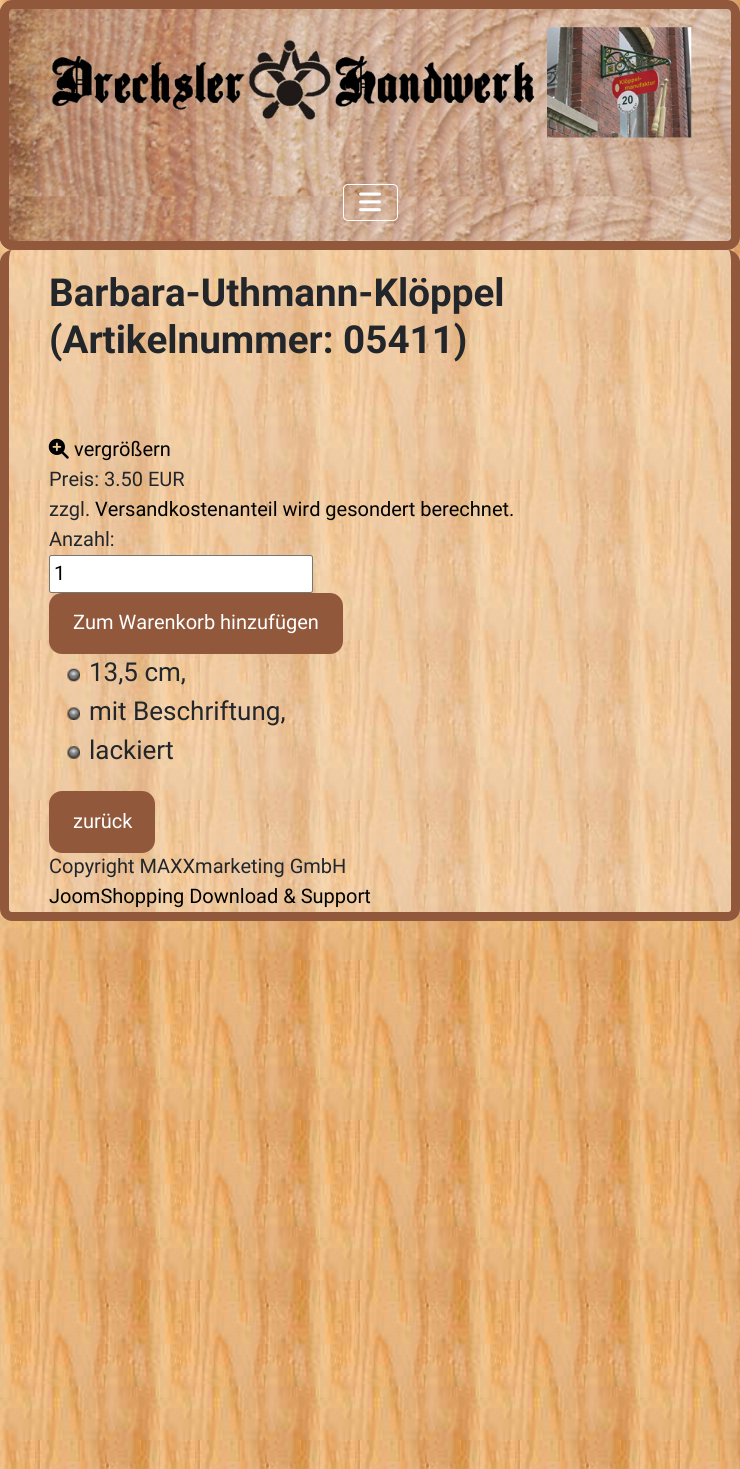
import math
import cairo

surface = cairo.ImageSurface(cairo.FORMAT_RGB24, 740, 1469)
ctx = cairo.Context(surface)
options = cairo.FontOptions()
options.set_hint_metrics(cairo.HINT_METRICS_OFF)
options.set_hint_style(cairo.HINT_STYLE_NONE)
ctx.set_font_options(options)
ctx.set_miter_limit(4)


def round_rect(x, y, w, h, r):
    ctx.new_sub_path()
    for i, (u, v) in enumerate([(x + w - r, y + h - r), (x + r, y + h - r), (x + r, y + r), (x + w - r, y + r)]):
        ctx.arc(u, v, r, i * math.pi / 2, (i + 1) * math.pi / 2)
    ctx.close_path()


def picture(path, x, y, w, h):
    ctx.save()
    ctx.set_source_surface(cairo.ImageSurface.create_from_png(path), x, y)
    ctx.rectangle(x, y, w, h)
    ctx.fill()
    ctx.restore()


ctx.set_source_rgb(1, 1, 1)
ctx.paint()
picture("img1.png", 0, 0, 740, 1469)
picture("img2.png", 0, 0, 740, 250)
round_rect(4.5, 4.5, 731, 241, 8.5)
ctx.set_source_rgb(0.569, 0.345, 0.231)
ctx.set_line_width(9)
ctx.stroke()
picture("img3.png", 51, 27, 641, 111)
round_rect(343.5, 184.5, 54, 36, 4.5)
ctx.set_source_rgb(1, 1, 1)
ctx.set_line_width(1)
ctx.stroke()
picture("img4.png", 359, 192, 22, 20)
ctx.set_source_rgba(1, 1, 1, 0.3)
round_rect(0, 250, 740, 671, 13)
ctx.fill()
ctx.set_source_rgb(0.569, 0.345, 0.231)
ctx.set_fill_rule(cairo.FILL_RULE_EVEN_ODD)
ctx.new_path()
ctx.move_to(12, 250)
ctx.line_to(728, 250)
ctx.curve_to(734, 250, 740, 256, 740, 262)
ctx.line_to(740, 909)
ctx.curve_to(740, 916, 734, 921, 728, 921)
ctx.line_to(12, 921)
ctx.curve_to(6, 921, 0, 916, 0, 909)
ctx.line_to(0, 262)
ctx.curve_to(0, 256, 6, 250, 12, 250)
ctx.close_path()
ctx.move_to(12, 250)
ctx.line_to(728, 250)
ctx.curve_to(730, 250, 731, 256, 731, 262)
ctx.line_to(731, 909)
ctx.curve_to(731, 911, 730, 912, 728, 912)
ctx.line_to(12, 912)
ctx.curve_to(10, 912, 9, 911, 9, 909)
ctx.line_to(9, 262)
ctx.curve_to(9, 256, 10, 250, 12, 250)
ctx.close_path()
ctx.fill()
ctx.select_font_face("Roboto", cairo.FONT_SLANT_NORMAL, cairo.FONT_WEIGHT_BOLD)
ctx.set_font_size(38.6)
ctx.set_source_rgb(0.133, 0.149, 0.165)
ctx.move_to(49, 306)
ctx.show_text("Barbara-Uthmann-Klöppel")
ctx.move_to(49, 353)
ctx.show_text("(Artikelnummer: 05411)")
picture("img5.png", 48, 438, 21, 21)
ctx.select_font_face("Roboto")
ctx.set_font_size(20)
ctx.set_source_rgb(0, 0, 0)
ctx.move_to(74, 456)
ctx.show_text("vergrößern")
ctx.set_source_rgb(0.133, 0.149, 0.165)
ctx.move_to(49, 486)
ctx.show_text("Preis: 3.50 EUR")
ctx.move_to(49, 516)
ctx.show_text("zzgl.")
ctx.set_source_rgb(0, 0, 0)
ctx.move_to(95, 516)
ctx.show_text("Versandkostenanteil wird gesondert berechnet.")
ctx.set_source_rgb(0.133, 0.149, 0.165)
ctx.move_to(49, 546)
ctx.show_text("Anzahl:")
ctx.set_source_rgb(1, 1, 1)
round_rect(49.5, 555.5, 263, 37, 2)
ctx.fill_preserve()
ctx.set_source_rgb(0.463, 0.463, 0.463)
ctx.stroke()
ctx.set_source_rgb(0, 0, 0)
ctx.move_to(54, 580)
ctx.show_text("1")
ctx.set_source_rgb(0.569, 0.345, 0.231)
round_rect(51, 595, 290, 57, 11)
ctx.fill_preserve()
ctx.set_line_width(4)
ctx.stroke()
ctx.set_source_rgb(1, 1, 1)
ctx.move_to(73, 629)
ctx.show_text("Zum Warenkorb hinzufügen")
picture("img6.png", 67, 668, 13, 14)
ctx.set_font_size(26)
ctx.set_source_rgb(0.133, 0.149, 0.165)
ctx.move_to(89, 681)
ctx.show_text("13,5 cm,")
picture("img7.png", 67, 707, 13, 13)
ctx.move_to(89, 720)
ctx.show_text("mit Beschriftung,")
picture("img8.png", 67, 746, 13, 13)
ctx.move_to(89, 759)
ctx.show_text("lackiert")
ctx.set_source_rgb(0.569, 0.345, 0.231)
round_rect(51, 793, 102, 58, 11)
ctx.fill_preserve()
ctx.stroke()
ctx.set_font_size(20)
ctx.set_source_rgb(1, 1, 1)
ctx.move_to(73, 828)
ctx.show_text("zurück")
ctx.set_source_rgb(0.133, 0.149, 0.165)
ctx.move_to(49, 873)
ctx.show_text("Copyright MAXXmarketing GmbH")
ctx.set_source_rgb(0, 0, 0)
ctx.move_to(49, 903)
ctx.show_text("JoomShopping Download & Support")
surface.write_to_png("page.png")
